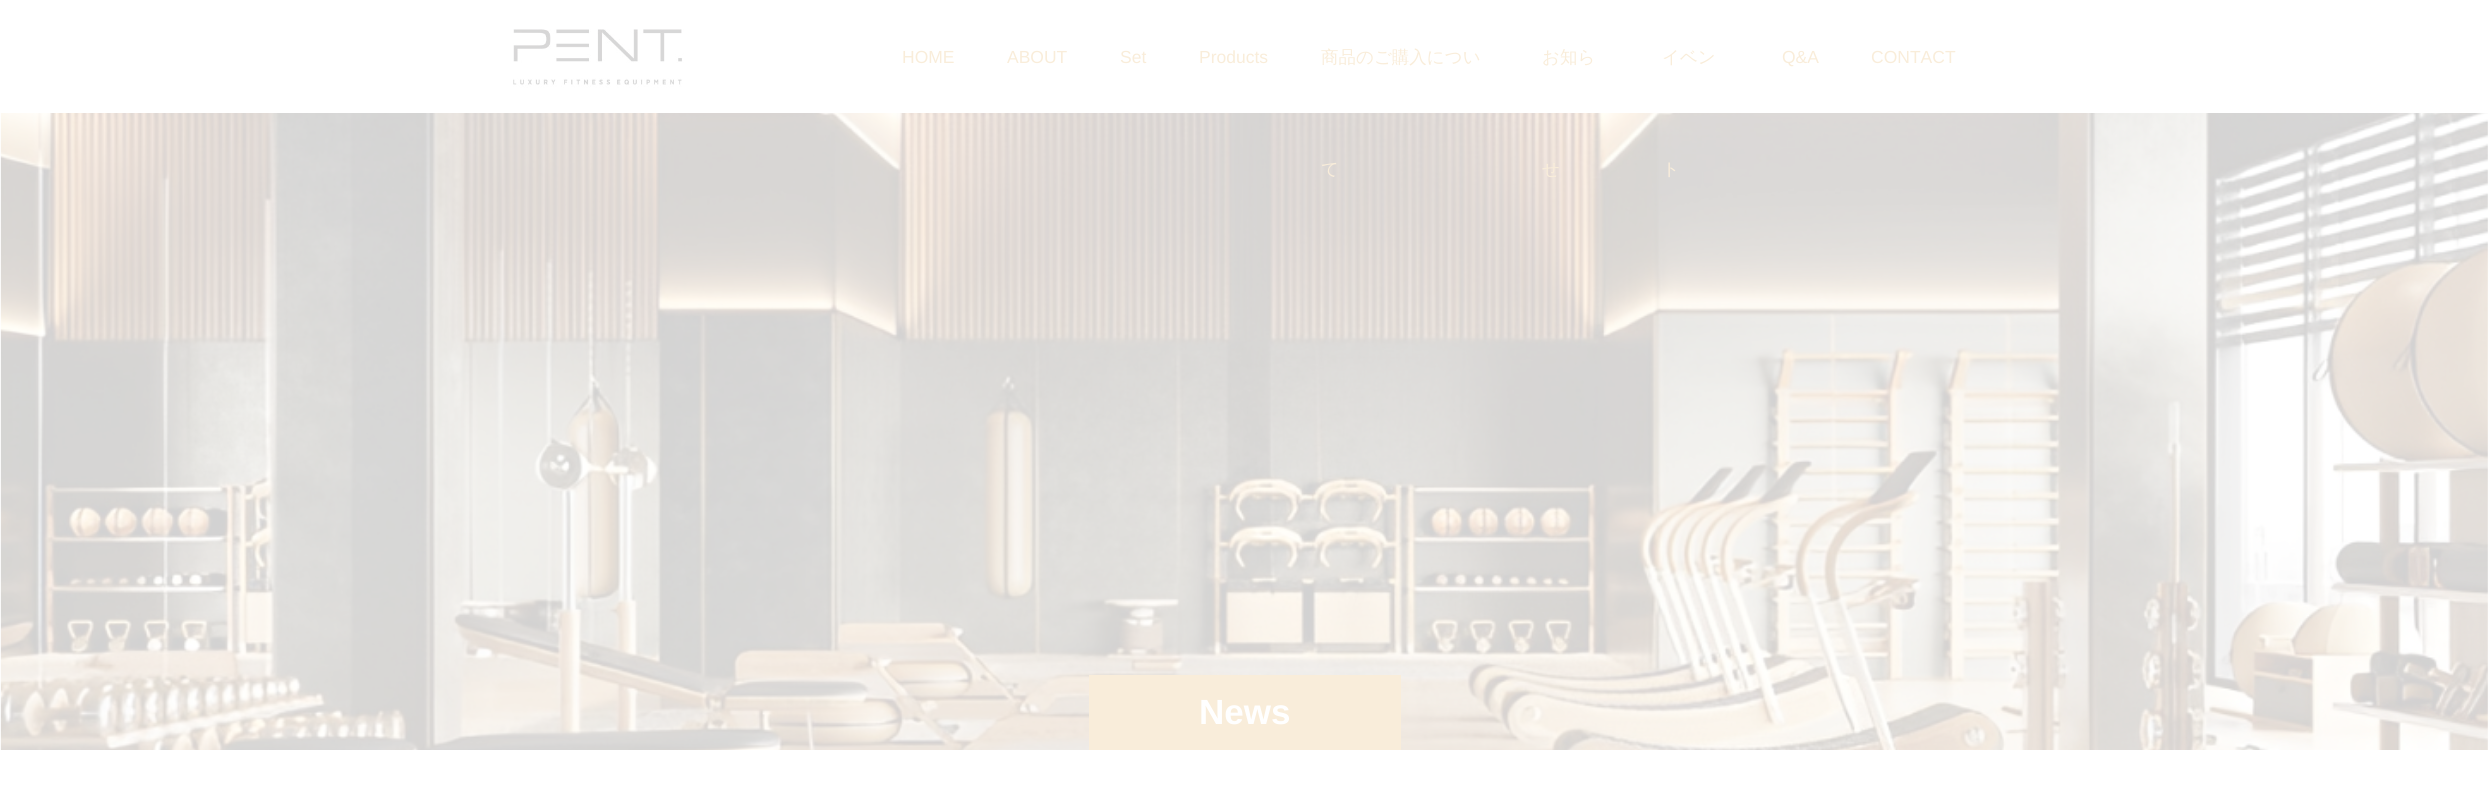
import math
import cairo

surface = cairo.ImageSurface(cairo.FORMAT_RGB24, 2488, 796)
ctx = cairo.Context(surface)
options = cairo.FontOptions()
options.set_hint_metrics(cairo.HINT_METRICS_OFF)
options.set_hint_style(cairo.HINT_STYLE_NONE)
ctx.set_font_options(options)
ctx.set_miter_limit(4)


def picture(path, x, y, w, h):
    ctx.save()
    ctx.set_source_surface(cairo.ImageSurface.create_from_png(path), x, y)
    ctx.rectangle(x, y, w, h)
    ctx.fill()
    ctx.restore()


ctx.set_source_rgb(1, 1, 1)
ctx.paint()
picture("img1.png", 513, 29, 171, 59)
ctx.select_font_face("Liberation Sans")
ctx.set_font_size(17.5)
ctx.set_source_rgb(0.976, 0.929, 0.855)
ctx.move_to(902, 63)
ctx.show_text("HOME")
ctx.move_to(1007, 63)
ctx.show_text("ABOUT")
ctx.move_to(1120, 63)
ctx.show_text("Set")
ctx.move_to(1199, 63)
ctx.show_text("Products")
ctx.select_font_face("WenQuanYi Zen Hei Medium")
ctx.move_to(1321, 63)
ctx.show_text("商品のご購入につい")
picture("img2.png", 0, 113, 2488, 637)
ctx.move_to(1321, 175)
ctx.show_text("て")
ctx.move_to(1542, 63)
ctx.show_text("お知ら")
ctx.move_to(1542, 175)
ctx.show_text("せ")
ctx.move_to(1662, 63)
ctx.show_text("イベン")
ctx.move_to(1662, 175)
ctx.show_text("ト")
ctx.select_font_face("Liberation Sans")
ctx.move_to(1782, 63)
ctx.show_text("Q&A")
ctx.move_to(1871, 63)
ctx.show_text("CONTACT")
ctx.rectangle(1089, 675, 312, 75)
ctx.fill()
ctx.select_font_face("Liberation Sans", cairo.FONT_SLANT_NORMAL, cairo.FONT_WEIGHT_BOLD)
ctx.set_font_size(35)
ctx.set_source_rgb(1, 1, 1)
ctx.move_to(1199, 724)
ctx.show_text("News")
surface.write_to_png("page.png")
